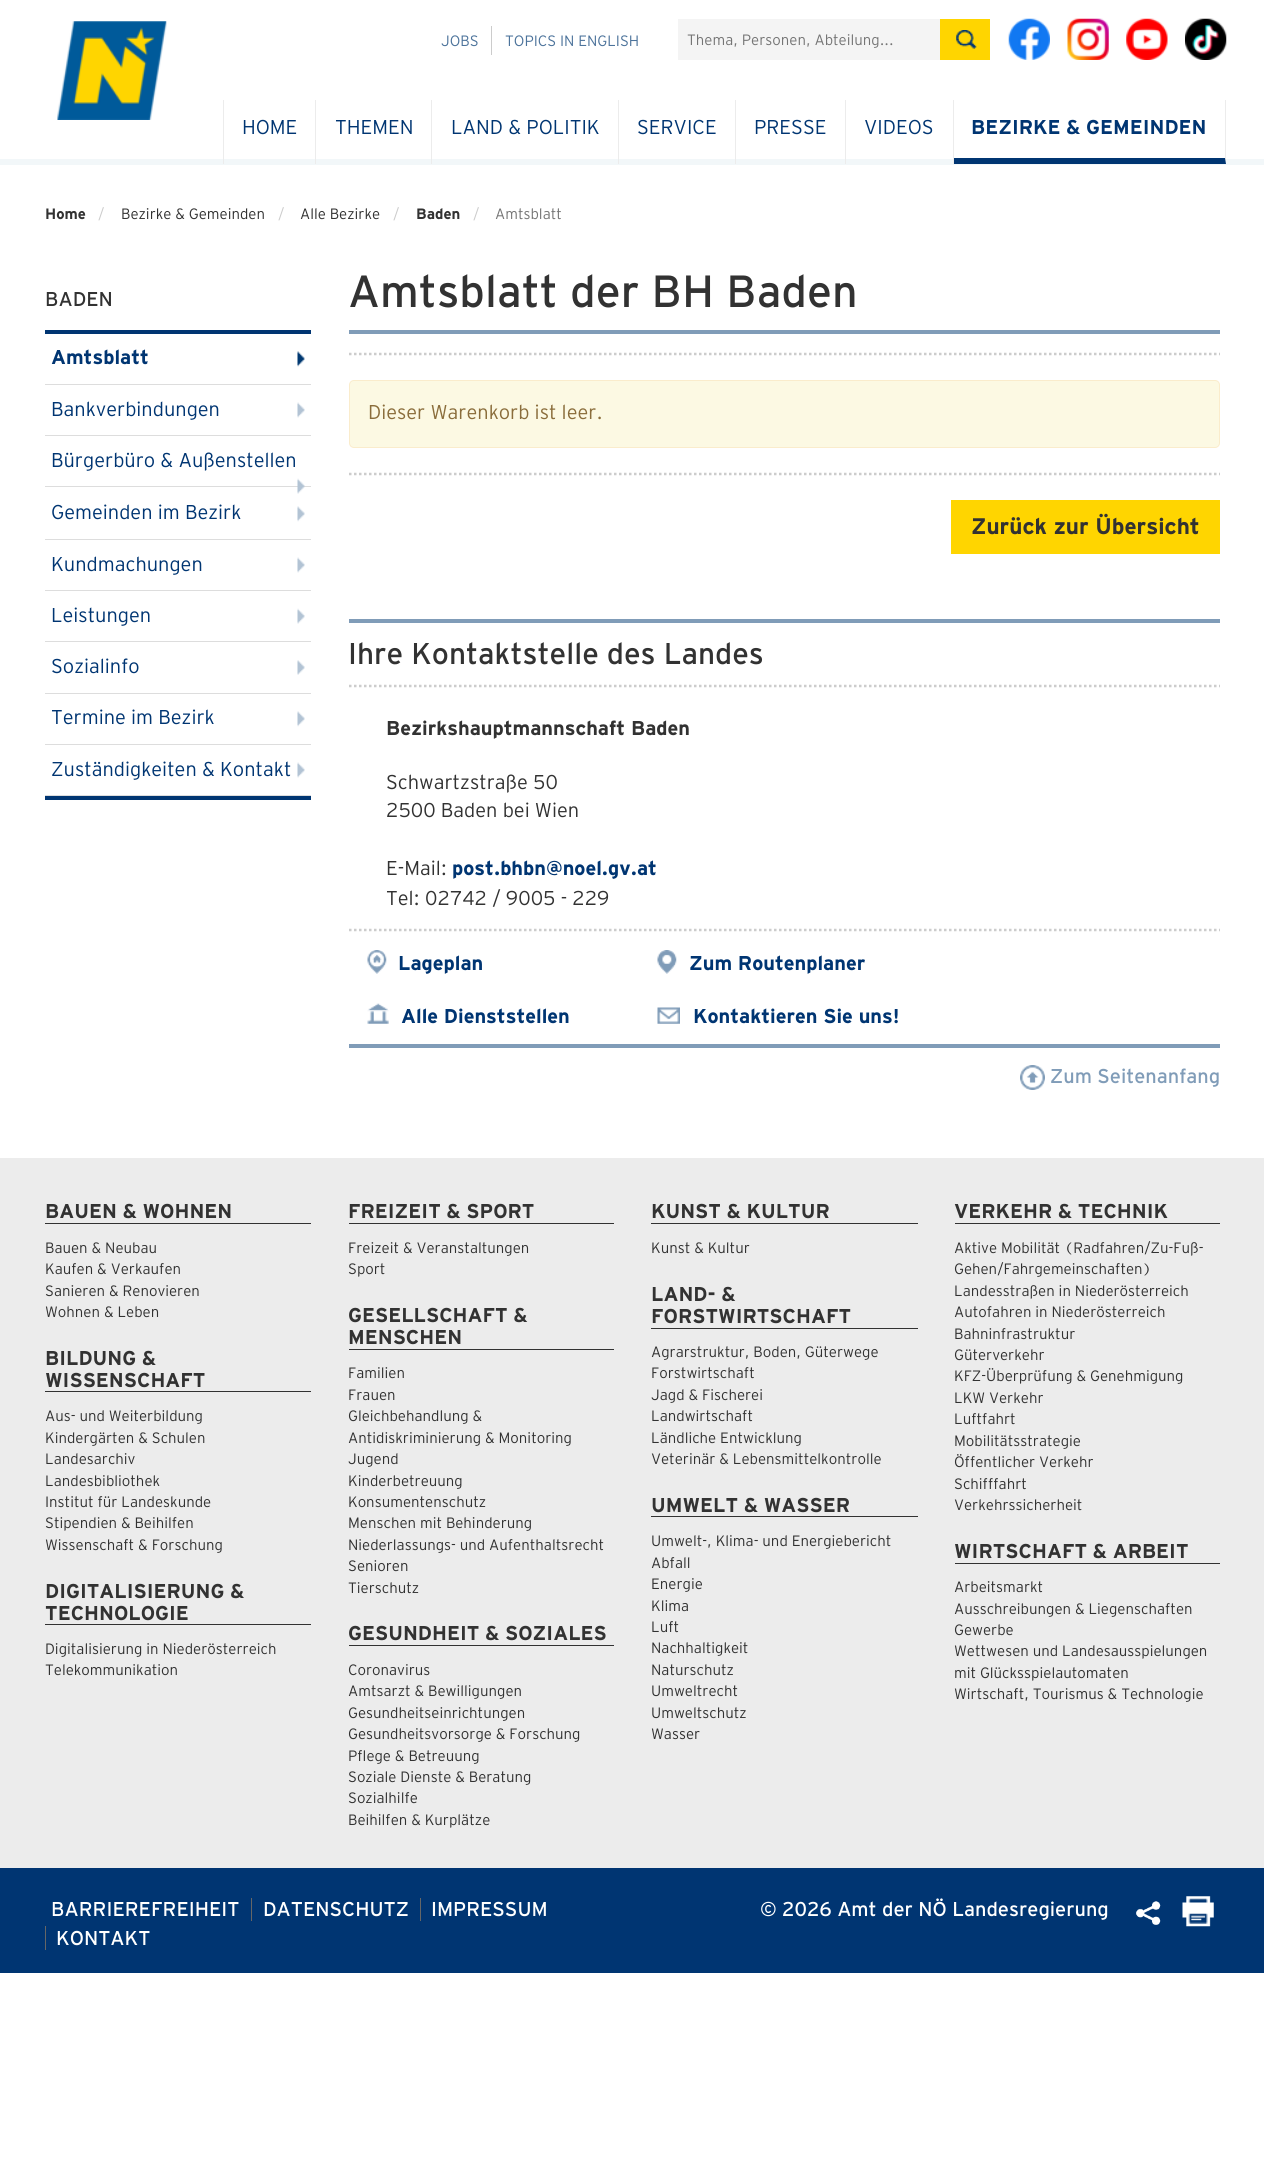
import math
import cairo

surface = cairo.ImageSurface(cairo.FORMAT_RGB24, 1264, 2176)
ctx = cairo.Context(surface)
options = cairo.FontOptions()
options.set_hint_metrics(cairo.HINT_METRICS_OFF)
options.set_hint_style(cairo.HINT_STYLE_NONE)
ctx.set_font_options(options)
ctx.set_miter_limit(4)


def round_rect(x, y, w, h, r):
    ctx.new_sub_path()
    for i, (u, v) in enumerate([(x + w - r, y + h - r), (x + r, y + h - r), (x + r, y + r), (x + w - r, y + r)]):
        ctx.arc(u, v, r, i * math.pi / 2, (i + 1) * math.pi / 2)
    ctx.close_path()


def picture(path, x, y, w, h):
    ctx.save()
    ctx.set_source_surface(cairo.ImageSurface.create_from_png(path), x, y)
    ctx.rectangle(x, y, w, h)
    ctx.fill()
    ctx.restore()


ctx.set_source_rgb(1, 1, 1)
ctx.paint()
ctx.set_source_rgb(0.949, 0.965, 0.976)
ctx.rectangle(0, 159, 1264, 6)
ctx.fill()
picture("img1.png", 57, 21, 110, 99)
ctx.select_font_face("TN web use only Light")
ctx.set_font_size(15)
ctx.set_source_rgb(0.298, 0.451, 0.608)
ctx.move_to(441, 46)
ctx.show_text("JOBS")
ctx.set_source_rgb(0.8, 0.8, 0.8)
ctx.rectangle(491, 26, 1, 29)
ctx.fill()
ctx.set_source_rgb(0.298, 0.451, 0.608)
ctx.move_to(505, 46)
ctx.show_text("TOPICS IN ENGLISH")
ctx.set_source_rgb(0.957, 0.957, 0.957)
ctx.rectangle(678, 19, 262, 41)
ctx.fill()
ctx.set_source_rgb(0.459, 0.459, 0.459)
ctx.move_to(687, 45)
ctx.show_text("Thema, Personen, Abteilung...")
ctx.set_source_rgb(1, 0.835, 0)
ctx.rectangle(940, 19, 50, 41)
ctx.fill()
picture("img2.png", 956, 30, 21, 19)
picture("img3.png", 1008, 18, 42, 42)
picture("img4.png", 1067, 18, 42, 42)
picture("img5.png", 1126, 18, 42, 42)
picture("img6.png", 1185, 18, 42, 42)
ctx.set_source_rgb(0.922, 0.922, 0.922)
ctx.rectangle(315, 100, 1, 64)
ctx.fill()
ctx.rectangle(223, 100, 1, 64)
ctx.fill()
ctx.set_font_size(20)
ctx.set_source_rgb(0, 0.208, 0.447)
ctx.move_to(242, 134)
ctx.show_text("HOME")
ctx.set_source_rgb(0.922, 0.922, 0.922)
ctx.rectangle(431, 100, 1, 64)
ctx.fill()
ctx.set_source_rgb(0, 0.208, 0.447)
ctx.move_to(335, 134)
ctx.show_text("THEMEN")
ctx.set_source_rgb(0.922, 0.922, 0.922)
ctx.rectangle(618, 100, 1, 64)
ctx.fill()
ctx.set_source_rgb(0, 0.208, 0.447)
ctx.move_to(451, 134)
ctx.show_text("LAND & POLITIK")
ctx.set_source_rgb(0.922, 0.922, 0.922)
ctx.rectangle(735, 100, 1, 64)
ctx.fill()
ctx.set_source_rgb(0, 0.208, 0.447)
ctx.move_to(637, 134)
ctx.show_text("SERVICE")
ctx.set_source_rgb(0.922, 0.922, 0.922)
ctx.rectangle(845, 100, 1, 64)
ctx.fill()
ctx.set_source_rgb(0, 0.208, 0.447)
ctx.move_to(754, 134)
ctx.show_text("PRESSE")
ctx.set_source_rgb(0.922, 0.922, 0.922)
ctx.rectangle(953, 100, 1, 64)
ctx.fill()
ctx.set_source_rgb(0, 0.208, 0.447)
ctx.move_to(864, 134)
ctx.show_text("VIDEOS")
ctx.set_source_rgb(0.922, 0.922, 0.922)
ctx.new_path()
ctx.move_to(1226, 100)
ctx.line_to(1226, 164)
ctx.line_to(1225, 158)
ctx.line_to(1225, 100)
ctx.close_path()
ctx.fill()
ctx.set_source_rgb(0, 0.208, 0.447)
ctx.new_path()
ctx.move_to(1226, 164)
ctx.line_to(954, 164)
ctx.line_to(954, 158)
ctx.line_to(1225, 158)
ctx.close_path()
ctx.fill()
ctx.select_font_face("TN web use only", cairo.FONT_SLANT_NORMAL, cairo.FONT_WEIGHT_BOLD)
ctx.move_to(971, 134)
ctx.show_text("BEZIRKE & GEMEINDEN")
ctx.set_font_size(15)
ctx.set_source_rgb(0.196, 0.196, 0.196)
ctx.move_to(45, 219)
ctx.show_text("Home")
ctx.select_font_face("TN web use only Light")
ctx.set_source_rgb(0.8, 0.8, 0.8)
ctx.move_to(98, 219)
ctx.show_text("/")
ctx.set_source_rgb(0.196, 0.196, 0.196)
ctx.move_to(121, 219)
ctx.show_text("Bezirke & Gemeinden")
ctx.set_source_rgb(0.8, 0.8, 0.8)
ctx.move_to(278, 219)
ctx.show_text("/")
ctx.set_source_rgb(0.196, 0.196, 0.196)
ctx.move_to(300, 219)
ctx.show_text("Alle Bezirke")
ctx.set_source_rgb(0.8, 0.8, 0.8)
ctx.move_to(393, 219)
ctx.show_text("/")
ctx.select_font_face("TN web use only", cairo.FONT_SLANT_NORMAL, cairo.FONT_WEIGHT_BOLD)
ctx.set_source_rgb(0.196, 0.196, 0.196)
ctx.move_to(416, 219)
ctx.show_text("Baden")
ctx.select_font_face("TN web use only Light")
ctx.set_source_rgb(0.8, 0.8, 0.8)
ctx.move_to(473, 219)
ctx.show_text("/")
ctx.set_source_rgb(0.459, 0.459, 0.459)
ctx.move_to(495, 219)
ctx.show_text("Amtsblatt")
ctx.select_font_face("TN web use only")
ctx.set_font_size(20)
ctx.set_source_rgb(0.196, 0.196, 0.196)
ctx.move_to(45, 306)
ctx.show_text("BADEN")
ctx.set_source_rgb(0, 0.208, 0.447)
ctx.rectangle(45, 330, 266, 4)
ctx.fill()
ctx.rectangle(45, 796, 266, 4)
ctx.fill()
ctx.set_source_rgb(0.867, 0.867, 0.867)
ctx.rectangle(45, 384, 266, 1)
ctx.fill()
ctx.select_font_face("TN web use only", cairo.FONT_SLANT_NORMAL, cairo.FONT_WEIGHT_BOLD)
ctx.set_source_rgb(0, 0.208, 0.447)
ctx.move_to(51, 364)
ctx.show_text("Amtsblatt")
picture("img7.png", 297, 351, 8, 16)
ctx.set_source_rgb(0.867, 0.867, 0.867)
ctx.rectangle(45, 435, 266, 1)
ctx.fill()
ctx.select_font_face("TN web use only Light")
ctx.set_source_rgb(0, 0.208, 0.447)
ctx.move_to(51, 416)
ctx.show_text("Bankverbindungen")
picture("img8.png", 297, 402, 8, 16)
ctx.set_source_rgb(0.867, 0.867, 0.867)
ctx.rectangle(45, 486, 266, 1)
ctx.fill()
ctx.set_source_rgb(0, 0.208, 0.447)
ctx.move_to(51, 467)
ctx.show_text("Bürgerbüro & Außenstellen")
picture("img9.png", 297, 478, 8, 16)
ctx.set_source_rgb(0.867, 0.867, 0.867)
ctx.rectangle(45, 539, 266, 1)
ctx.fill()
ctx.set_source_rgb(0, 0.208, 0.447)
ctx.move_to(51, 519)
ctx.show_text("Gemeinden im Bezirk")
picture("img10.png", 297, 506, 8, 16)
ctx.set_source_rgb(0.867, 0.867, 0.867)
ctx.rectangle(45, 590, 266, 1)
ctx.fill()
ctx.set_source_rgb(0, 0.208, 0.447)
ctx.move_to(51, 571)
ctx.show_text("Kundmachungen")
picture("img8.png", 297, 557, 8, 16)
ctx.set_source_rgb(0.867, 0.867, 0.867)
ctx.rectangle(45, 641, 266, 1)
ctx.fill()
ctx.set_source_rgb(0, 0.208, 0.447)
ctx.move_to(51, 622)
ctx.show_text("Leistungen")
picture("img11.png", 297, 608, 8, 16)
ctx.set_source_rgb(0.867, 0.867, 0.867)
ctx.rectangle(45, 693, 266, 1)
ctx.fill()
ctx.set_source_rgb(0, 0.208, 0.447)
ctx.move_to(51, 673)
ctx.show_text("Sozialinfo")
picture("img12.png", 297, 660, 8, 15)
ctx.set_source_rgb(0.867, 0.867, 0.867)
ctx.rectangle(45, 744, 266, 1)
ctx.fill()
ctx.set_source_rgb(0, 0.208, 0.447)
ctx.move_to(51, 724)
ctx.show_text("Termine im Bezirk")
picture("img10.png", 297, 711, 8, 16)
ctx.set_source_rgb(0.867, 0.867, 0.867)
ctx.rectangle(45, 795, 266, 1)
ctx.fill()
ctx.set_source_rgb(0, 0.208, 0.447)
ctx.move_to(51, 776)
ctx.show_text("Zuständigkeiten & Kontakt")
picture("img8.png", 297, 762, 8, 16)
ctx.set_source_rgb(0.502, 0.612, 0.722)
ctx.rectangle(349, 330, 871, 4)
ctx.fill()
ctx.select_font_face("TN web use only")
ctx.set_font_size(45)
ctx.set_source_rgb(0.196, 0.196, 0.196)
ctx.move_to(348, 307)
ctx.show_text("Amtsblatt der BH Baden")
ctx.new_path()
ctx.move_to(349, 354)
ctx.line_to(1220, 354)
ctx.set_source_rgb(0.8, 0.8, 0.8)
ctx.set_line_width(2.5)
ctx.set_dash([2.5, 2.5])
ctx.stroke()
ctx.set_source_rgb(0.988, 0.973, 0.89)
round_rect(349.5, 380.5, 870, 67, 4.5)
ctx.fill_preserve()
ctx.set_source_rgb(0.98, 0.922, 0.8)
ctx.set_line_width(1)
ctx.set_dash([])
ctx.stroke()
ctx.select_font_face("TN web use only Light")
ctx.set_font_size(20)
ctx.set_source_rgb(0.541, 0.427, 0.231)
ctx.move_to(368, 419)
ctx.show_text("Dieser Warenkorb ist leer.")
ctx.new_path()
ctx.move_to(349, 474)
ctx.line_to(1220, 474)
ctx.set_source_rgb(0.8, 0.8, 0.8)
ctx.set_line_width(2.5)
ctx.set_dash([2.5, 2.5])
ctx.stroke()
ctx.set_source_rgb(1, 0.835, 0)
ctx.rectangle(951, 500, 269, 54)
ctx.fill()
ctx.select_font_face("TN web use only", cairo.FONT_SLANT_NORMAL, cairo.FONT_WEIGHT_BOLD)
ctx.set_font_size(22.5)
ctx.set_source_rgb(0.196, 0.196, 0.196)
ctx.move_to(971, 534)
ctx.show_text("Zurück zur Übersicht")
ctx.set_source_rgb(0.502, 0.612, 0.722)
ctx.rectangle(349, 619, 871, 4)
ctx.fill()
ctx.select_font_face("TN web use only")
ctx.set_font_size(30)
ctx.set_source_rgb(0.196, 0.196, 0.196)
ctx.move_to(348, 664)
ctx.show_text("Ihre Kontaktstelle des Landes")
ctx.new_path()
ctx.move_to(349, 686)
ctx.line_to(1220, 686)
ctx.set_source_rgb(0.8, 0.8, 0.8)
ctx.stroke()
ctx.select_font_face("TN web use only", cairo.FONT_SLANT_NORMAL, cairo.FONT_WEIGHT_BOLD)
ctx.set_font_size(20)
ctx.set_source_rgb(0.196, 0.196, 0.196)
ctx.move_to(386, 735)
ctx.show_text("Bezirkshauptmannschaft Baden")
ctx.select_font_face("TN web use only Light")
ctx.move_to(386, 789)
ctx.show_text("Schwartzstraße 50")
ctx.move_to(386, 817)
ctx.show_text("2500 Baden bei Wien")
ctx.move_to(386, 875)
ctx.show_text("E-Mail:")
ctx.select_font_face("TN web use only", cairo.FONT_SLANT_NORMAL, cairo.FONT_WEIGHT_BOLD)
ctx.set_source_rgb(0, 0.208, 0.447)
ctx.move_to(452, 875)
ctx.show_text("post.bhbn@noel.gv.at")
ctx.select_font_face("TN web use only Light")
ctx.set_source_rgb(0.196, 0.196, 0.196)
ctx.move_to(386, 905)
ctx.show_text("Tel: 02742 / 9005 - 229")
ctx.new_path()
ctx.move_to(349, 930)
ctx.line_to(1220, 930)
ctx.set_source_rgb(0.8, 0.8, 0.8)
ctx.stroke()
picture("img13.png", 367, 950, 20, 24)
ctx.select_font_face("TN web use only", cairo.FONT_SLANT_NORMAL, cairo.FONT_WEIGHT_BOLD)
ctx.set_source_rgb(0, 0.208, 0.447)
ctx.move_to(398, 970)
ctx.show_text("Lageplan")
picture("img14.png", 657, 950, 20, 24)
ctx.move_to(689, 970)
ctx.show_text("Zum Routenplaner")
picture("img15.png", 367, 1003, 22, 21)
ctx.move_to(401, 1023)
ctx.show_text("Alle Dienststellen")
picture("img16.png", 657, 1007, 23, 17)
ctx.move_to(693, 1023)
ctx.show_text("Kontaktieren Sie uns!")
ctx.set_source_rgb(0.502, 0.612, 0.722)
ctx.rectangle(349, 1044, 871, 4)
ctx.fill()
picture("img17.png", 1020, 1065, 25, 25)
ctx.select_font_face("TN web use only")
ctx.move_to(1050, 1083)
ctx.show_text("Zum Seitenanfang")
ctx.set_source_rgb(0.922, 0.922, 0.922)
ctx.rectangle(0, 1158, 1264, 710)
ctx.fill()
ctx.set_source_rgb(0.196, 0.196, 0.196)
ctx.rectangle(45, 1223, 266, 1)
ctx.fill()
ctx.select_font_face("TN web use only", cairo.FONT_SLANT_NORMAL, cairo.FONT_WEIGHT_BOLD)
ctx.move_to(45, 1218)
ctx.show_text("BAUEN & WOHNEN")
ctx.select_font_face("TN web use only Light")
ctx.set_font_size(15)
ctx.move_to(45, 1253)
ctx.show_text("Bauen & Neubau")
ctx.move_to(45, 1274)
ctx.show_text("Kaufen & Verkaufen")
ctx.move_to(45, 1296)
ctx.show_text("Sanieren & Renovieren")
ctx.move_to(45, 1317)
ctx.show_text("Wohnen & Leben")
ctx.rectangle(45, 1391, 266, 1)
ctx.fill()
ctx.select_font_face("TN web use only", cairo.FONT_SLANT_NORMAL, cairo.FONT_WEIGHT_BOLD)
ctx.set_font_size(20)
ctx.move_to(45, 1365)
ctx.show_text("BILDUNG &")
ctx.move_to(45, 1387)
ctx.show_text("WISSENSCHAFT")
ctx.select_font_face("TN web use only Light")
ctx.set_font_size(15)
ctx.move_to(45, 1421)
ctx.show_text("Aus- und Weiterbildung")
ctx.move_to(45, 1443)
ctx.show_text("Kindergärten & Schulen")
ctx.move_to(45, 1464)
ctx.show_text("Landesarchiv")
ctx.move_to(45, 1486)
ctx.show_text("Landesbibliothek")
ctx.move_to(45, 1507)
ctx.show_text("Institut für Landeskunde")
ctx.move_to(45, 1528)
ctx.show_text("Stipendien & Beihilfen")
ctx.move_to(45, 1550)
ctx.show_text("Wissenschaft & Forschung")
ctx.rectangle(45, 1624, 266, 1)
ctx.fill()
ctx.select_font_face("TN web use only", cairo.FONT_SLANT_NORMAL, cairo.FONT_WEIGHT_BOLD)
ctx.set_font_size(20)
ctx.move_to(45, 1598)
ctx.show_text("DIGITALISIERUNG &")
ctx.move_to(45, 1620)
ctx.show_text("TECHNOLOGIE")
ctx.select_font_face("TN web use only Light")
ctx.set_font_size(15)
ctx.move_to(45, 1654)
ctx.show_text("Digitalisierung in Niederösterreich")
ctx.move_to(45, 1675)
ctx.show_text("Telekommunikation")
ctx.rectangle(349, 1223, 265, 1)
ctx.fill()
ctx.select_font_face("TN web use only", cairo.FONT_SLANT_NORMAL, cairo.FONT_WEIGHT_BOLD)
ctx.set_font_size(20)
ctx.move_to(348, 1218)
ctx.show_text("FREIZEIT & SPORT")
ctx.select_font_face("TN web use only Light")
ctx.set_font_size(15)
ctx.move_to(348, 1253)
ctx.show_text("Freizeit & Veranstaltungen")
ctx.move_to(348, 1274)
ctx.show_text("Sport")
ctx.rectangle(349, 1349, 265, 1)
ctx.fill()
ctx.select_font_face("TN web use only", cairo.FONT_SLANT_NORMAL, cairo.FONT_WEIGHT_BOLD)
ctx.set_font_size(20)
ctx.move_to(348, 1322)
ctx.show_text("GESELLSCHAFT &")
ctx.move_to(348, 1344)
ctx.show_text("MENSCHEN")
ctx.select_font_face("TN web use only Light")
ctx.set_font_size(15)
ctx.move_to(348, 1378)
ctx.show_text("Familien")
ctx.move_to(348, 1400)
ctx.show_text("Frauen")
ctx.move_to(348, 1421)
ctx.show_text("Gleichbehandlung &")
ctx.move_to(348, 1443)
ctx.show_text("Antidiskriminierung & Monitoring")
ctx.move_to(348, 1464)
ctx.show_text("Jugend")
ctx.move_to(348, 1486)
ctx.show_text("Kinderbetreuung")
ctx.move_to(348, 1507)
ctx.show_text("Konsumentenschutz")
ctx.move_to(348, 1528)
ctx.show_text("Menschen mit Behinderung")
ctx.move_to(348, 1550)
ctx.show_text("Niederlassungs- und Aufenthaltsrecht")
ctx.move_to(348, 1571)
ctx.show_text("Senioren")
ctx.move_to(348, 1593)
ctx.show_text("Tierschutz")
ctx.rectangle(349, 1645, 265, 1)
ctx.fill()
ctx.select_font_face("TN web use only", cairo.FONT_SLANT_NORMAL, cairo.FONT_WEIGHT_BOLD)
ctx.set_font_size(20)
ctx.move_to(348, 1640)
ctx.show_text("GESUNDHEIT & SOZIALES")
ctx.select_font_face("TN web use only Light")
ctx.set_font_size(15)
ctx.move_to(348, 1675)
ctx.show_text("Coronavirus")
ctx.move_to(348, 1696)
ctx.show_text("Amtsarzt & Bewilligungen")
ctx.move_to(348, 1718)
ctx.show_text("Gesundheitseinrichtungen")
ctx.move_to(348, 1739)
ctx.show_text("Gesundheitsvorsorge & Forschung")
ctx.move_to(348, 1761)
ctx.show_text("Pflege & Betreuung")
ctx.move_to(348, 1782)
ctx.show_text("Soziale Dienste & Beratung")
ctx.move_to(348, 1803)
ctx.show_text("Sozialhilfe")
ctx.move_to(348, 1825)
ctx.show_text("Beihilfen & Kurplätze")
ctx.rectangle(651, 1223, 267, 1)
ctx.fill()
ctx.select_font_face("TN web use only", cairo.FONT_SLANT_NORMAL, cairo.FONT_WEIGHT_BOLD)
ctx.set_font_size(20)
ctx.move_to(651, 1218)
ctx.show_text("KUNST & KULTUR")
ctx.select_font_face("TN web use only Light")
ctx.set_font_size(15)
ctx.move_to(651, 1253)
ctx.show_text("Kunst & Kultur")
ctx.rectangle(651, 1328, 267, 1)
ctx.fill()
ctx.select_font_face("TN web use only", cairo.FONT_SLANT_NORMAL, cairo.FONT_WEIGHT_BOLD)
ctx.set_font_size(20)
ctx.move_to(651, 1301)
ctx.show_text("LAND- &")
ctx.move_to(651, 1323)
ctx.show_text("FORSTWIRTSCHAFT")
ctx.select_font_face("TN web use only Light")
ctx.set_font_size(15)
ctx.move_to(651, 1357)
ctx.show_text("Agrarstruktur, Boden, Güterwege")
ctx.move_to(651, 1378)
ctx.show_text("Forstwirtschaft")
ctx.move_to(651, 1400)
ctx.show_text("Jagd & Fischerei")
ctx.move_to(651, 1421)
ctx.show_text("Landwirtschaft")
ctx.move_to(651, 1443)
ctx.show_text("Ländliche Entwicklung")
ctx.move_to(651, 1464)
ctx.show_text("Veterinär & Lebensmittelkontrolle")
ctx.rectangle(651, 1516, 267, 1)
ctx.fill()
ctx.select_font_face("TN web use only", cairo.FONT_SLANT_NORMAL, cairo.FONT_WEIGHT_BOLD)
ctx.set_font_size(20)
ctx.move_to(651, 1512)
ctx.show_text("UMWELT & WASSER")
ctx.select_font_face("TN web use only Light")
ctx.set_font_size(15)
ctx.move_to(651, 1546)
ctx.show_text("Umwelt-, Klima- und Energiebericht")
ctx.move_to(651, 1568)
ctx.show_text("Abfall")
ctx.move_to(651, 1589)
ctx.show_text("Energie")
ctx.move_to(651, 1611)
ctx.show_text("Klima")
ctx.move_to(651, 1632)
ctx.show_text("Luft")
ctx.move_to(651, 1653)
ctx.show_text("Nachhaltigkeit")
ctx.move_to(651, 1675)
ctx.show_text("Naturschutz")
ctx.move_to(651, 1696)
ctx.show_text("Umweltrecht")
ctx.move_to(651, 1718)
ctx.show_text("Umweltschutz")
ctx.move_to(651, 1739)
ctx.show_text("Wasser")
ctx.rectangle(955, 1223, 265, 1)
ctx.fill()
ctx.select_font_face("TN web use only", cairo.FONT_SLANT_NORMAL, cairo.FONT_WEIGHT_BOLD)
ctx.set_font_size(20)
ctx.move_to(954, 1218)
ctx.show_text("VERKEHR & TECHNIK")
ctx.select_font_face("TN web use only Light")
ctx.set_font_size(15)
ctx.move_to(954, 1253)
ctx.show_text("Aktive Mobilität (Radfahren/Zu-Fuß-")
ctx.move_to(954, 1274)
ctx.show_text("Gehen/Fahrgemeinschaften)")
ctx.move_to(954, 1296)
ctx.show_text("Landesstraßen in Niederösterreich")
ctx.move_to(954, 1317)
ctx.show_text("Autofahren in Niederösterreich")
ctx.move_to(954, 1339)
ctx.show_text("Bahninfrastruktur")
ctx.move_to(954, 1360)
ctx.show_text("Güterverkehr")
ctx.move_to(954, 1381)
ctx.show_text("KFZ-Überprüfung & Genehmigung")
ctx.move_to(954, 1403)
ctx.show_text("LKW Verkehr")
ctx.move_to(954, 1424)
ctx.show_text("Luftfahrt")
ctx.move_to(954, 1446)
ctx.show_text("Mobilitätsstrategie")
ctx.move_to(954, 1467)
ctx.show_text("Öffentlicher Verkehr")
ctx.move_to(954, 1489)
ctx.show_text("Schifffahrt")
ctx.move_to(954, 1510)
ctx.show_text("Verkehrssicherheit")
ctx.rectangle(955, 1563, 265, 1)
ctx.fill()
ctx.select_font_face("TN web use only", cairo.FONT_SLANT_NORMAL, cairo.FONT_WEIGHT_BOLD)
ctx.set_font_size(20)
ctx.move_to(954, 1558)
ctx.show_text("WIRTSCHAFT & ARBEIT")
ctx.select_font_face("TN web use only Light")
ctx.set_font_size(15)
ctx.move_to(954, 1592)
ctx.show_text("Arbeitsmarkt")
ctx.move_to(954, 1614)
ctx.show_text("Ausschreibungen & Liegenschaften")
ctx.move_to(954, 1635)
ctx.show_text("Gewerbe")
ctx.move_to(954, 1656)
ctx.show_text("Wettwesen und Landesausspielungen")
ctx.move_to(954, 1678)
ctx.show_text("mit Glücksspielautomaten")
ctx.move_to(954, 1699)
ctx.show_text("Wirtschaft, Tourismus & Technologie")
ctx.set_source_rgb(0, 0.208, 0.447)
ctx.rectangle(0, 1868, 1264, 105)
ctx.fill()
ctx.select_font_face("TN web use only")
ctx.set_font_size(20)
ctx.set_source_rgb(1, 1, 1)
ctx.move_to(51, 1916)
ctx.show_text("BARRIEREFREIHEIT")
ctx.move_to(263, 1916)
ctx.show_text("DATENSCHUTZ")
ctx.set_source_rgb(0.4, 0.4, 0.4)
ctx.rectangle(251, 1898, 1, 23)
ctx.fill()
ctx.set_source_rgb(1, 1, 1)
ctx.move_to(431, 1916)
ctx.show_text("IMPRESSUM")
ctx.set_source_rgb(0.4, 0.4, 0.4)
ctx.rectangle(420, 1898, 1, 23)
ctx.fill()
ctx.set_source_rgb(1, 1, 1)
ctx.move_to(56, 1945)
ctx.show_text("KONTAKT")
ctx.set_source_rgb(0.4, 0.4, 0.4)
ctx.rectangle(45, 1926, 1, 24)
ctx.fill()
ctx.set_source_rgb(1, 1, 1)
ctx.move_to(760, 1916)
ctx.show_text("© 2026 Amt der NÖ Landesregierung")
picture("img18.png", 1136, 1901, 25, 24)
picture("img19.png", 1182, 1896, 32, 31)
surface.write_to_png("page.png")
